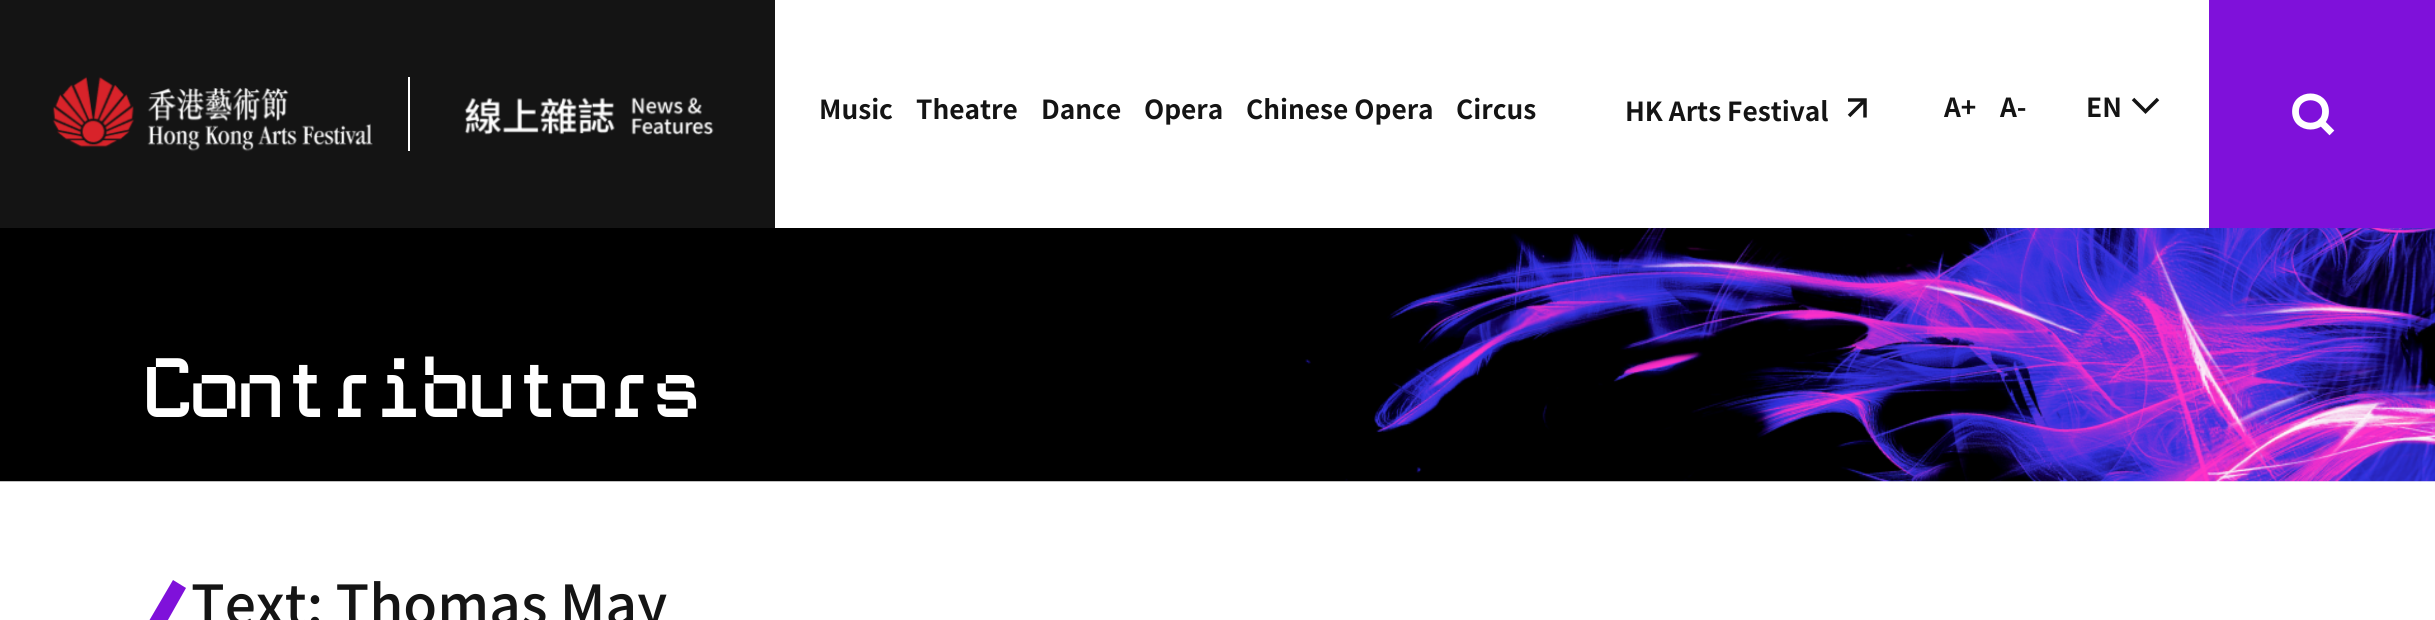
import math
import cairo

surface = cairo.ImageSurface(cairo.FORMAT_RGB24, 2435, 620)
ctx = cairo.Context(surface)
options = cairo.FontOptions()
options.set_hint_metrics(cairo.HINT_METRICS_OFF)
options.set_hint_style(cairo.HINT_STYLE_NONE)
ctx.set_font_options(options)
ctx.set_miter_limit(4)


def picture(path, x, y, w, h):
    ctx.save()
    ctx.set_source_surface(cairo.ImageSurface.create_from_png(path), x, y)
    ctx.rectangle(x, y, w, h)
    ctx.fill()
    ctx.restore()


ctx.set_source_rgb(1, 1, 1)
ctx.paint()
ctx.set_source_rgb(0.082, 0.082, 0.082)
ctx.rectangle(0, 0, 775, 228)
ctx.fill()
ctx.set_source_rgb(1, 1, 1)
ctx.rectangle(408, 77, 2, 74)
ctx.fill()
picture("img1.png", 52, 76, 321, 76)
picture("img2.png", 464, 97, 250, 38)
ctx.select_font_face("Noto Sans TC", cairo.FONT_SLANT_NORMAL, cairo.FONT_WEIGHT_BOLD)
ctx.set_font_size(26.25)
ctx.set_source_rgb(0.082, 0.082, 0.082)
ctx.move_to(819, 119)
ctx.show_text("Music")
ctx.move_to(916, 119)
ctx.show_text("Theatre")
ctx.move_to(1041, 119)
ctx.show_text("Dance")
ctx.move_to(1144, 119)
ctx.show_text("Opera")
ctx.move_to(1246, 119)
ctx.show_text("Chinese Opera")
ctx.move_to(1456, 119)
ctx.show_text("Circus")
ctx.move_to(1625, 121)
ctx.show_text("HK Arts Festival")
ctx.new_path()
ctx.move_to(1848, 100)
ctx.line_to(1865, 100)
ctx.line_to(1865, 117.5)
ctx.move_to(1865, 100)
ctx.line_to(1849, 116)
ctx.set_line_width(3.5)
ctx.stroke()
ctx.move_to(1944, 117)
ctx.show_text("A+")
ctx.move_to(2000, 117)
ctx.show_text("A-")
ctx.move_to(2086, 117)
ctx.show_text("EN")
ctx.new_path()
ctx.move_to(2158, 99)
ctx.line_to(2145.5, 111.5)
ctx.line_to(2133, 99)
ctx.stroke()
ctx.set_source_rgb(0.498, 0.067, 0.855)
ctx.rectangle(2209, 0, 226, 228)
ctx.fill()
ctx.new_path()
ctx.move_to(2321, 122)
ctx.line_to(2329.5, 130.5)
ctx.move_to(2325.5, 111.5)
ctx.curve_to(2325.5, 131, 2295.5, 131, 2295.5, 111.5)
ctx.curve_to(2295.5, 92, 2325.5, 92, 2325.5, 111.5)
ctx.close_path()
ctx.set_source_rgb(1, 1, 1)
ctx.set_line_width(6.8)
ctx.set_line_cap(cairo.LINE_CAP_SQUARE)
ctx.set_line_join(cairo.LINE_JOIN_ROUND)
ctx.stroke()
picture("img3.png", 0, 228, 2435, 254)
ctx.select_font_face("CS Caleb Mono")
ctx.set_font_size(84)
ctx.move_to(145, 417)
ctx.show_text("Contributors")
ctx.set_source_rgb(0.498, 0.067, 0.855)
ctx.new_path()
ctx.move_to(173, 580)
ctx.line_to(186, 588)
ctx.line_to(160, 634)
ctx.line_to(146, 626)
ctx.close_path()
ctx.fill()
ctx.select_font_face("Noto Sans TC Medium")
ctx.set_font_size(55.1)
ctx.set_source_rgb(0.082, 0.082, 0.082)
ctx.move_to(191, 625)
ctx.show_text("Text: Thomas May")
surface.write_to_png("page.png")
